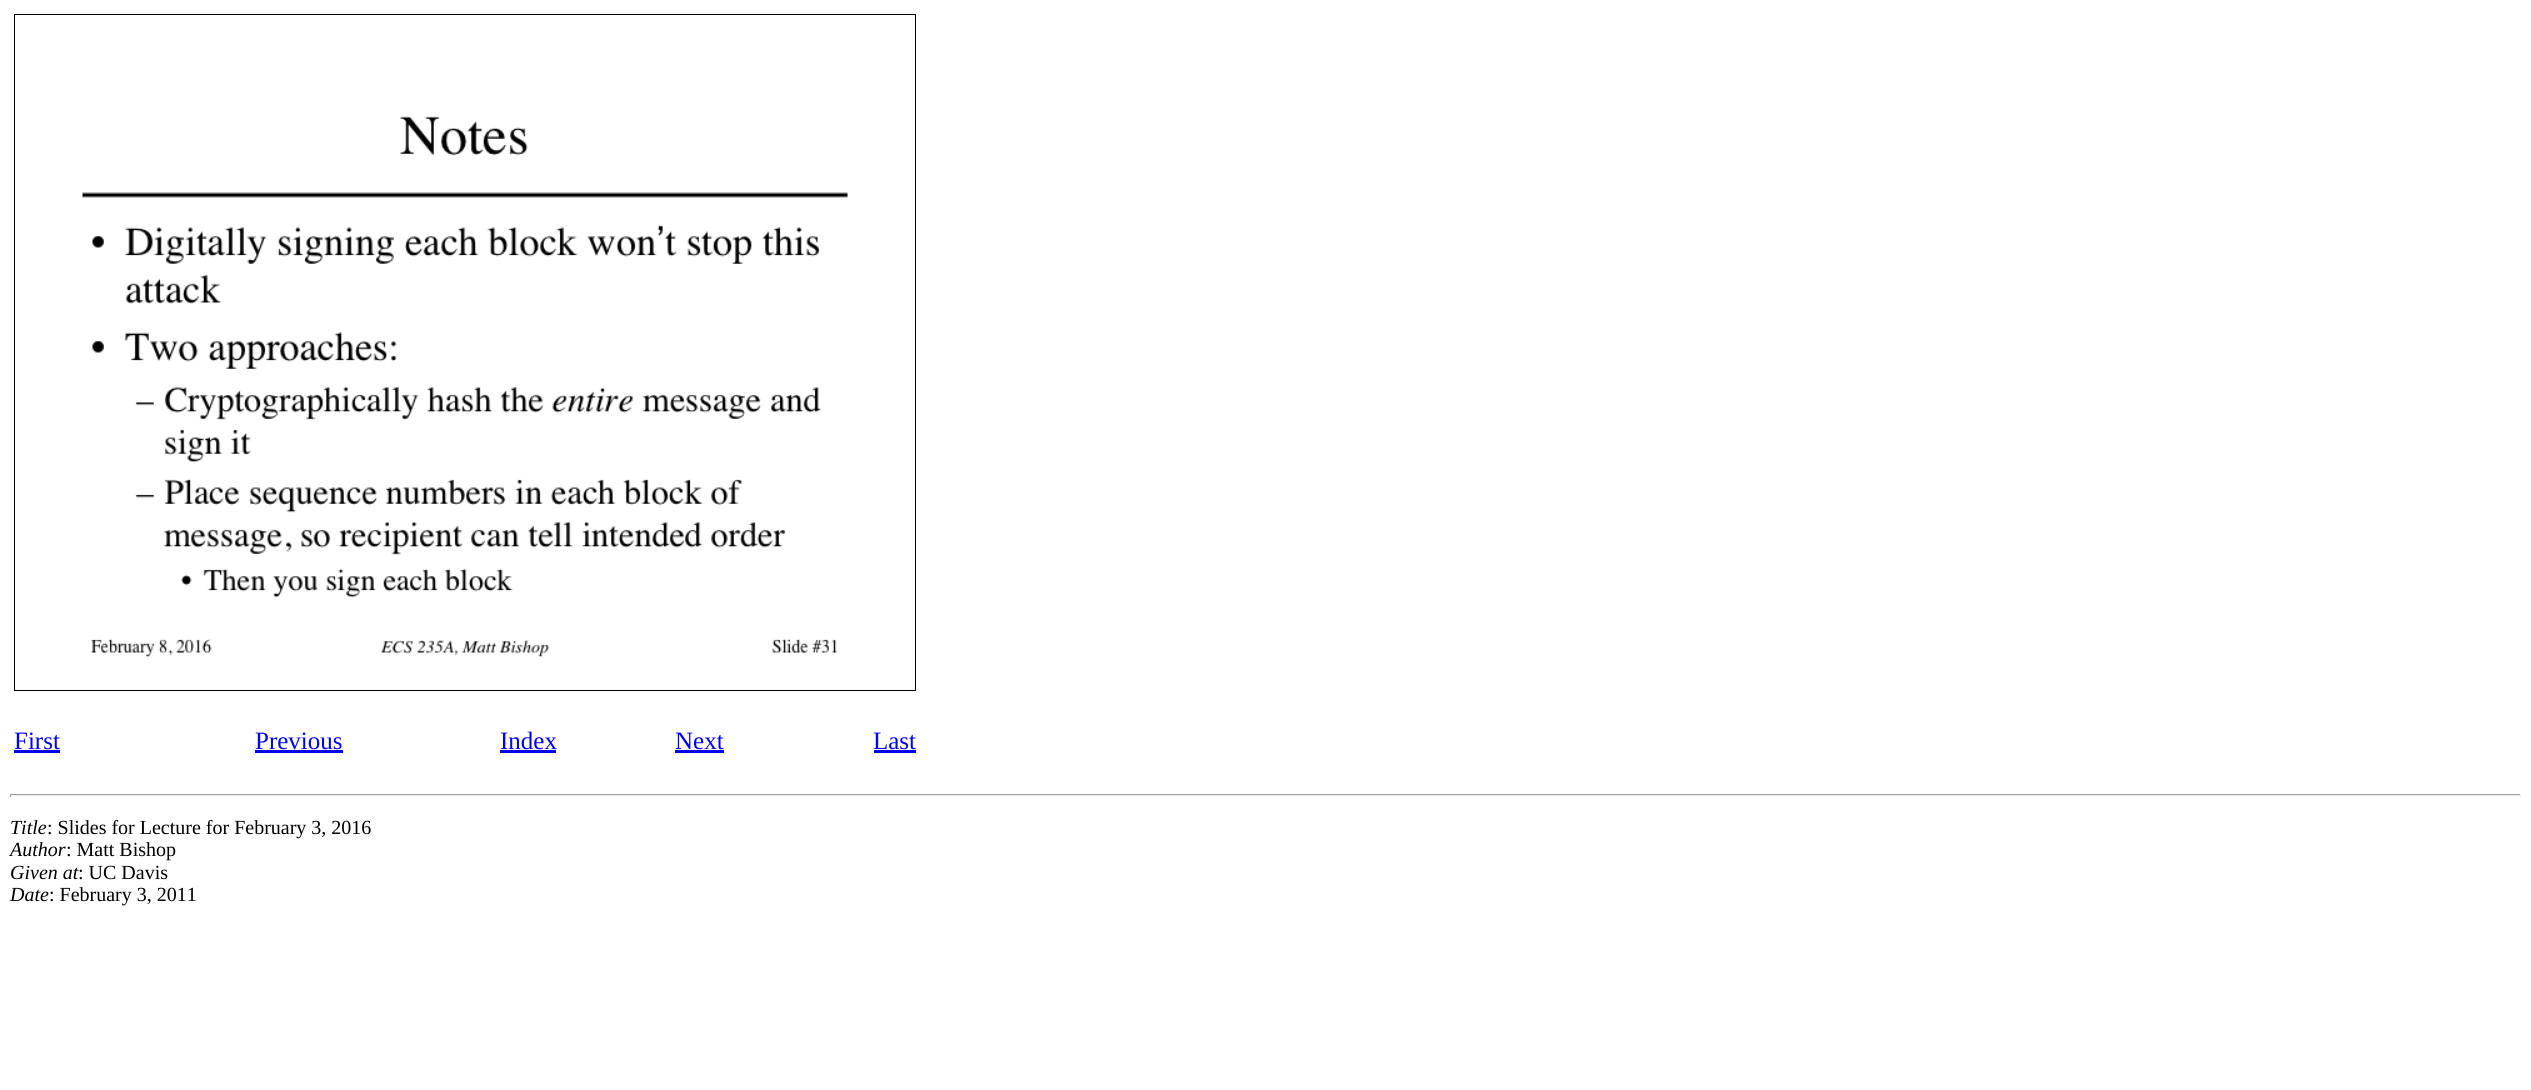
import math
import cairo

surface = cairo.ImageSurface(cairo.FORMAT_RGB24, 2531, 1090)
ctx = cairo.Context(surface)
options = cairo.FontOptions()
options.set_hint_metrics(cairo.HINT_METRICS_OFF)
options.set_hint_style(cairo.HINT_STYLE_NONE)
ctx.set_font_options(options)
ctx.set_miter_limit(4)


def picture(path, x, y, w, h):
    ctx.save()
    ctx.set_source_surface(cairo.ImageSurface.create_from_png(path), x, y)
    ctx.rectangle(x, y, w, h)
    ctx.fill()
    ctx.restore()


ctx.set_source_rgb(1, 1, 1)
ctx.paint()
ctx.rectangle(14.5, 14.5, 901, 676)
ctx.set_source_rgb(0, 0, 0)
ctx.set_line_width(1)
ctx.stroke()
picture("img1.png", 82, 116, 766, 541)
ctx.select_font_face("Liberation Serif")
ctx.set_font_size(25)
ctx.set_source_rgb(0, 0, 0.933)
ctx.move_to(14, 749)
ctx.show_text("First")
ctx.rectangle(14, 750, 46, 3)
ctx.fill()
ctx.move_to(255, 749)
ctx.show_text("Previous")
ctx.rectangle(255, 750, 88, 3)
ctx.fill()
ctx.move_to(500, 749)
ctx.show_text("Index")
ctx.rectangle(500, 750, 56, 3)
ctx.fill()
ctx.move_to(675, 749)
ctx.show_text("Next")
ctx.rectangle(675, 750, 49, 3)
ctx.fill()
ctx.move_to(873, 749)
ctx.show_text("Last")
ctx.rectangle(874, 750, 42, 3)
ctx.fill()
ctx.set_source_rgb(0.624, 0.624, 0.624)
ctx.rectangle(10, 794, 2511, 1)
ctx.fill()
ctx.set_source_rgb(0.933, 0.933, 0.933)
ctx.rectangle(2520, 794, 1, 3)
ctx.fill()
ctx.rectangle(10, 795, 2511, 1)
ctx.fill()
ctx.set_source_rgb(0.624, 0.624, 0.624)
ctx.rectangle(10, 794, 1, 3)
ctx.fill()
ctx.select_font_face("Liberation Serif", cairo.FONT_SLANT_ITALIC)
ctx.set_font_size(20)
ctx.set_source_rgb(0, 0, 0)
ctx.move_to(10, 834)
ctx.show_text("Title")
ctx.select_font_face("Liberation Serif")
ctx.move_to(47, 834)
ctx.show_text(": Slides for Lecture for February 3, 2016")
ctx.select_font_face("Liberation Serif", cairo.FONT_SLANT_ITALIC)
ctx.move_to(10, 856)
ctx.show_text("Author")
ctx.select_font_face("Liberation Serif")
ctx.move_to(66, 856)
ctx.show_text(": Matt Bishop")
ctx.select_font_face("Liberation Serif", cairo.FONT_SLANT_ITALIC)
ctx.move_to(10, 879)
ctx.show_text("Given at")
ctx.select_font_face("Liberation Serif")
ctx.move_to(78, 879)
ctx.show_text(": UC Davis")
ctx.select_font_face("Liberation Serif", cairo.FONT_SLANT_ITALIC)
ctx.move_to(10, 901)
ctx.show_text("Date")
ctx.select_font_face("Liberation Serif")
ctx.move_to(49, 901)
ctx.show_text(": February 3, 2011")
surface.write_to_png("page.png")
